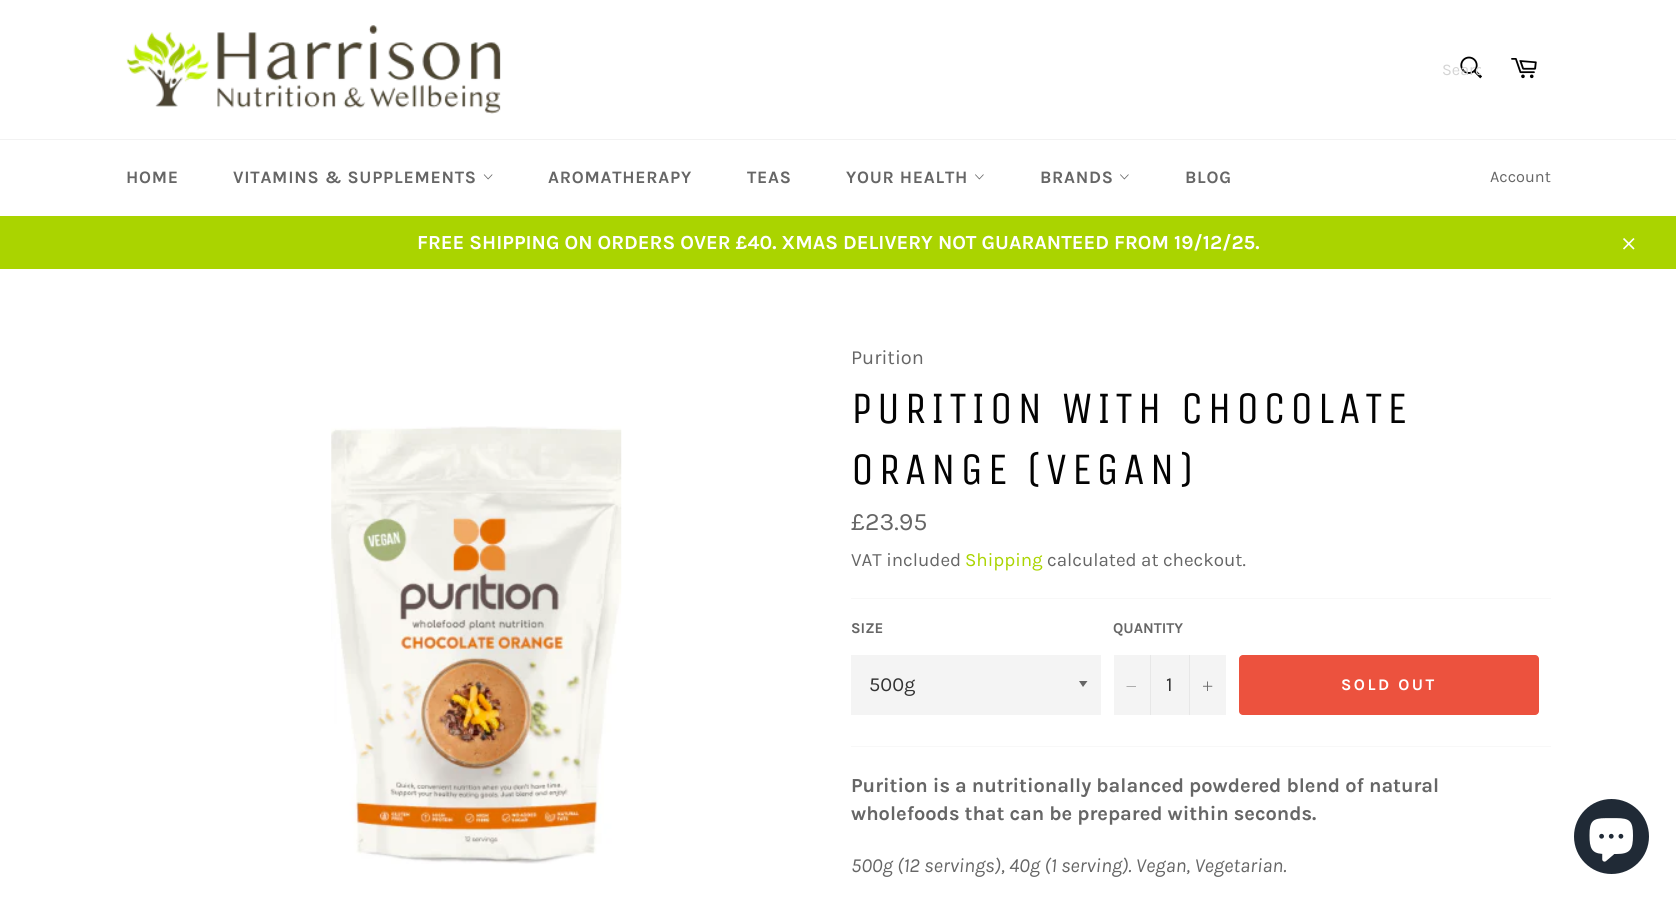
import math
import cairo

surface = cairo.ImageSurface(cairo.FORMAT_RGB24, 1676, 900)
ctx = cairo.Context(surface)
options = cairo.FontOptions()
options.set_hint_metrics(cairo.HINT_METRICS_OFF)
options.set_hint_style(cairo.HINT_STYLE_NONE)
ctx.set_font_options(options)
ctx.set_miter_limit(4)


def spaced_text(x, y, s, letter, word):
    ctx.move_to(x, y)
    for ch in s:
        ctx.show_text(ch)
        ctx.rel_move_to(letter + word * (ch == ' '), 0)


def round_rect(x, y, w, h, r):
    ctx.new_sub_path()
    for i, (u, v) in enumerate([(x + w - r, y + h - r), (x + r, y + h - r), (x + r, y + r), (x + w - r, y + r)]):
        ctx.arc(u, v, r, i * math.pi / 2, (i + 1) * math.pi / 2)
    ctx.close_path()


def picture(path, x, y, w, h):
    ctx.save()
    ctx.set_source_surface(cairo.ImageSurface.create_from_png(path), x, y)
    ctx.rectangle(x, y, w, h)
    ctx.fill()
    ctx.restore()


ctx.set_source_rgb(1, 1, 1)
ctx.paint()
picture("img1.png", 126, 25, 375, 89)
picture("img2.png", 1460, 56, 22, 23)
ctx.save()
ctx.rectangle(1441, 60, 40, 19)
ctx.clip()
ctx.select_font_face("Karla")
ctx.set_font_size(16.25)
ctx.set_source_rgb(0.831, 0.831, 0.831)
ctx.move_to(1442, 75)
ctx.show_text("Searc")
ctx.restore()
picture("img3.png", 1511, 58, 26, 21)
ctx.set_source_rgb(0.949, 0.949, 0.949)
ctx.rectangle(0, 139, 1676, 1)
ctx.fill()
ctx.select_font_face("Karla", cairo.FONT_SLANT_NORMAL, cairo.FONT_WEIGHT_BOLD)
ctx.set_font_size(17.5)
ctx.set_source_rgb(0.4, 0.4, 0.4)
spaced_text(126, 183, "HOME", 0.75, 0)
spaced_text(233, 183, "VITAMINS & SUPPLEMENTS", 0.75, 0)
picture("img4.png", 483, 174, 10, 6)
spaced_text(548, 183, "AROMATHERAPY", 0.75, 0)
spaced_text(747, 183, "TEAS", 0.75, 0)
spaced_text(846, 183, "YOUR HEALTH", 0.75, 0)
picture("img5.png", 975, 174, 9, 6)
spaced_text(1040, 183, "BRANDS", 0.75, 0)
picture("img5.png", 1120, 174, 9, 6)
spaced_text(1185, 183, "BLOG", 0.75, 0)
ctx.select_font_face("Karla")
ctx.set_font_size(16.25)
ctx.move_to(1490, 182)
ctx.show_text("Account")
ctx.set_source_rgb(0.667, 0.831, 0)
ctx.rectangle(0, 216, 1676, 53)
ctx.fill()
ctx.select_font_face("Karla", cairo.FONT_SLANT_NORMAL, cairo.FONT_WEIGHT_BOLD)
ctx.set_font_size(20)
ctx.set_source_rgb(1, 1, 1)
ctx.move_to(417, 249)
ctx.show_text("FREE SHIPPING ON ORDERS OVER £40. XMAS DELIVERY NOT GUARANTEED FROM 19/12/25.")
picture("img6.png", 1623, 238, 12, 12)
picture("img7.png", 331, 426, 291, 438)
ctx.select_font_face("Karla")
ctx.set_source_rgb(0.4, 0.4, 0.4)
ctx.move_to(851, 364)
ctx.show_text("Purition")
ctx.select_font_face("Unica One")
ctx.set_font_size(45)
ctx.set_source_rgb(0.012, 0.012, 0.012)
spaced_text(851, 423, "PURITION WITH CHOCOLATE", 4.5, 0)
spaced_text(851, 484, "ORANGE (VEGAN)", 4.5, 0)
ctx.select_font_face("Karla")
ctx.set_font_size(25)
ctx.set_source_rgb(0.4, 0.4, 0.4)
ctx.move_to(851, 530)
ctx.show_text("£23.95")
ctx.set_font_size(18.75)
ctx.move_to(851, 566)
ctx.show_text("VAT included")
ctx.set_source_rgb(0.667, 0.831, 0)
ctx.move_to(965, 566)
ctx.show_text("Shipping")
ctx.set_source_rgb(0.4, 0.4, 0.4)
ctx.move_to(1047, 566)
ctx.show_text("calculated at checkout.")
ctx.set_source_rgb(0.969, 0.969, 0.969)
ctx.rectangle(851, 598, 700, 1)
ctx.fill()
ctx.select_font_face("Karla", cairo.FONT_SLANT_NORMAL, cairo.FONT_WEIGHT_BOLD)
ctx.set_font_size(15)
ctx.set_source_rgb(0.4, 0.4, 0.4)
ctx.move_to(851, 633)
ctx.show_text("SIZE")
ctx.set_source_rgb(0.957, 0.957, 0.957)
ctx.rectangle(851, 655, 250, 60)
ctx.fill()
ctx.set_source_rgb(0.4, 0.4, 0.4)
ctx.new_path()
ctx.move_to(1079, 681)
ctx.line_to(1083, 687)
ctx.line_to(1087.5, 681)
ctx.close_path()
ctx.fill()
ctx.select_font_face("Karla")
ctx.set_font_size(20)
ctx.set_source_rgb(0.2, 0.2, 0.2)
ctx.move_to(869, 691)
ctx.show_text("500g")
ctx.select_font_face("Karla", cairo.FONT_SLANT_NORMAL, cairo.FONT_WEIGHT_BOLD)
ctx.set_font_size(15)
ctx.set_source_rgb(0.4, 0.4, 0.4)
ctx.move_to(1113, 633)
ctx.show_text("QUANTITY")
ctx.set_source_rgb(0.957, 0.957, 0.957)
ctx.rectangle(1114, 655, 112, 60)
ctx.fill()
ctx.set_source_rgb(0.906, 0.906, 0.906)
ctx.rectangle(1150, 655, 1, 60)
ctx.fill()
ctx.set_source_rgb(0.4, 0.4, 0.4)
ctx.set_fill_rule(cairo.FILL_RULE_EVEN_ODD)
ctx.new_path()
ctx.move_to(1136, 686)
ctx.line_to(1136, 686.5)
ctx.line_to(1126.5, 686.5)
ctx.line_to(1126.5, 686)
ctx.close_path()
ctx.fill()
ctx.select_font_face("Karla")
ctx.set_font_size(20)
ctx.set_source_rgb(0.2, 0.2, 0.2)
ctx.move_to(1166, 691)
ctx.show_text("1")
ctx.set_source_rgb(0.906, 0.906, 0.906)
ctx.rectangle(1189, 655, 1, 60)
ctx.fill()
picture("img8.png", 1203, 681, 10, 10)
ctx.set_source_rgb(0.925, 0.322, 0.243)
round_rect(1239, 655, 300, 60, 4)
ctx.fill()
ctx.select_font_face("Karla", cairo.FONT_SLANT_NORMAL, cairo.FONT_WEIGHT_BOLD)
ctx.set_font_size(16.25)
ctx.set_source_rgb(1, 1, 1)
spaced_text(1341, 690, "SOLD OUT", 2.5, 0)
ctx.set_source_rgb(0.969, 0.969, 0.969)
ctx.rectangle(851, 746, 700, 1)
ctx.fill()
ctx.set_font_size(20)
ctx.set_source_rgb(0.4, 0.4, 0.4)
ctx.move_to(851, 792)
ctx.show_text("Purition is a nutritionally balanced powdered blend of natural")
ctx.move_to(851, 820)
ctx.show_text("wholefoods that can be prepared within seconds.")
ctx.select_font_face("Karla", cairo.FONT_SLANT_ITALIC)
ctx.move_to(851, 872)
ctx.show_text("500g (12 servings), 40g (1 serving). Vegan, Vegetarian.")
ctx.set_source_rgb(0.125, 0.165, 0.212)
ctx.new_path()
ctx.arc(1611.5, 836.5, 37.5, 0, 2 * math.pi)
ctx.fill()
picture("img9.png", 1589, 818, 44, 44)
surface.write_to_png("page.png")
